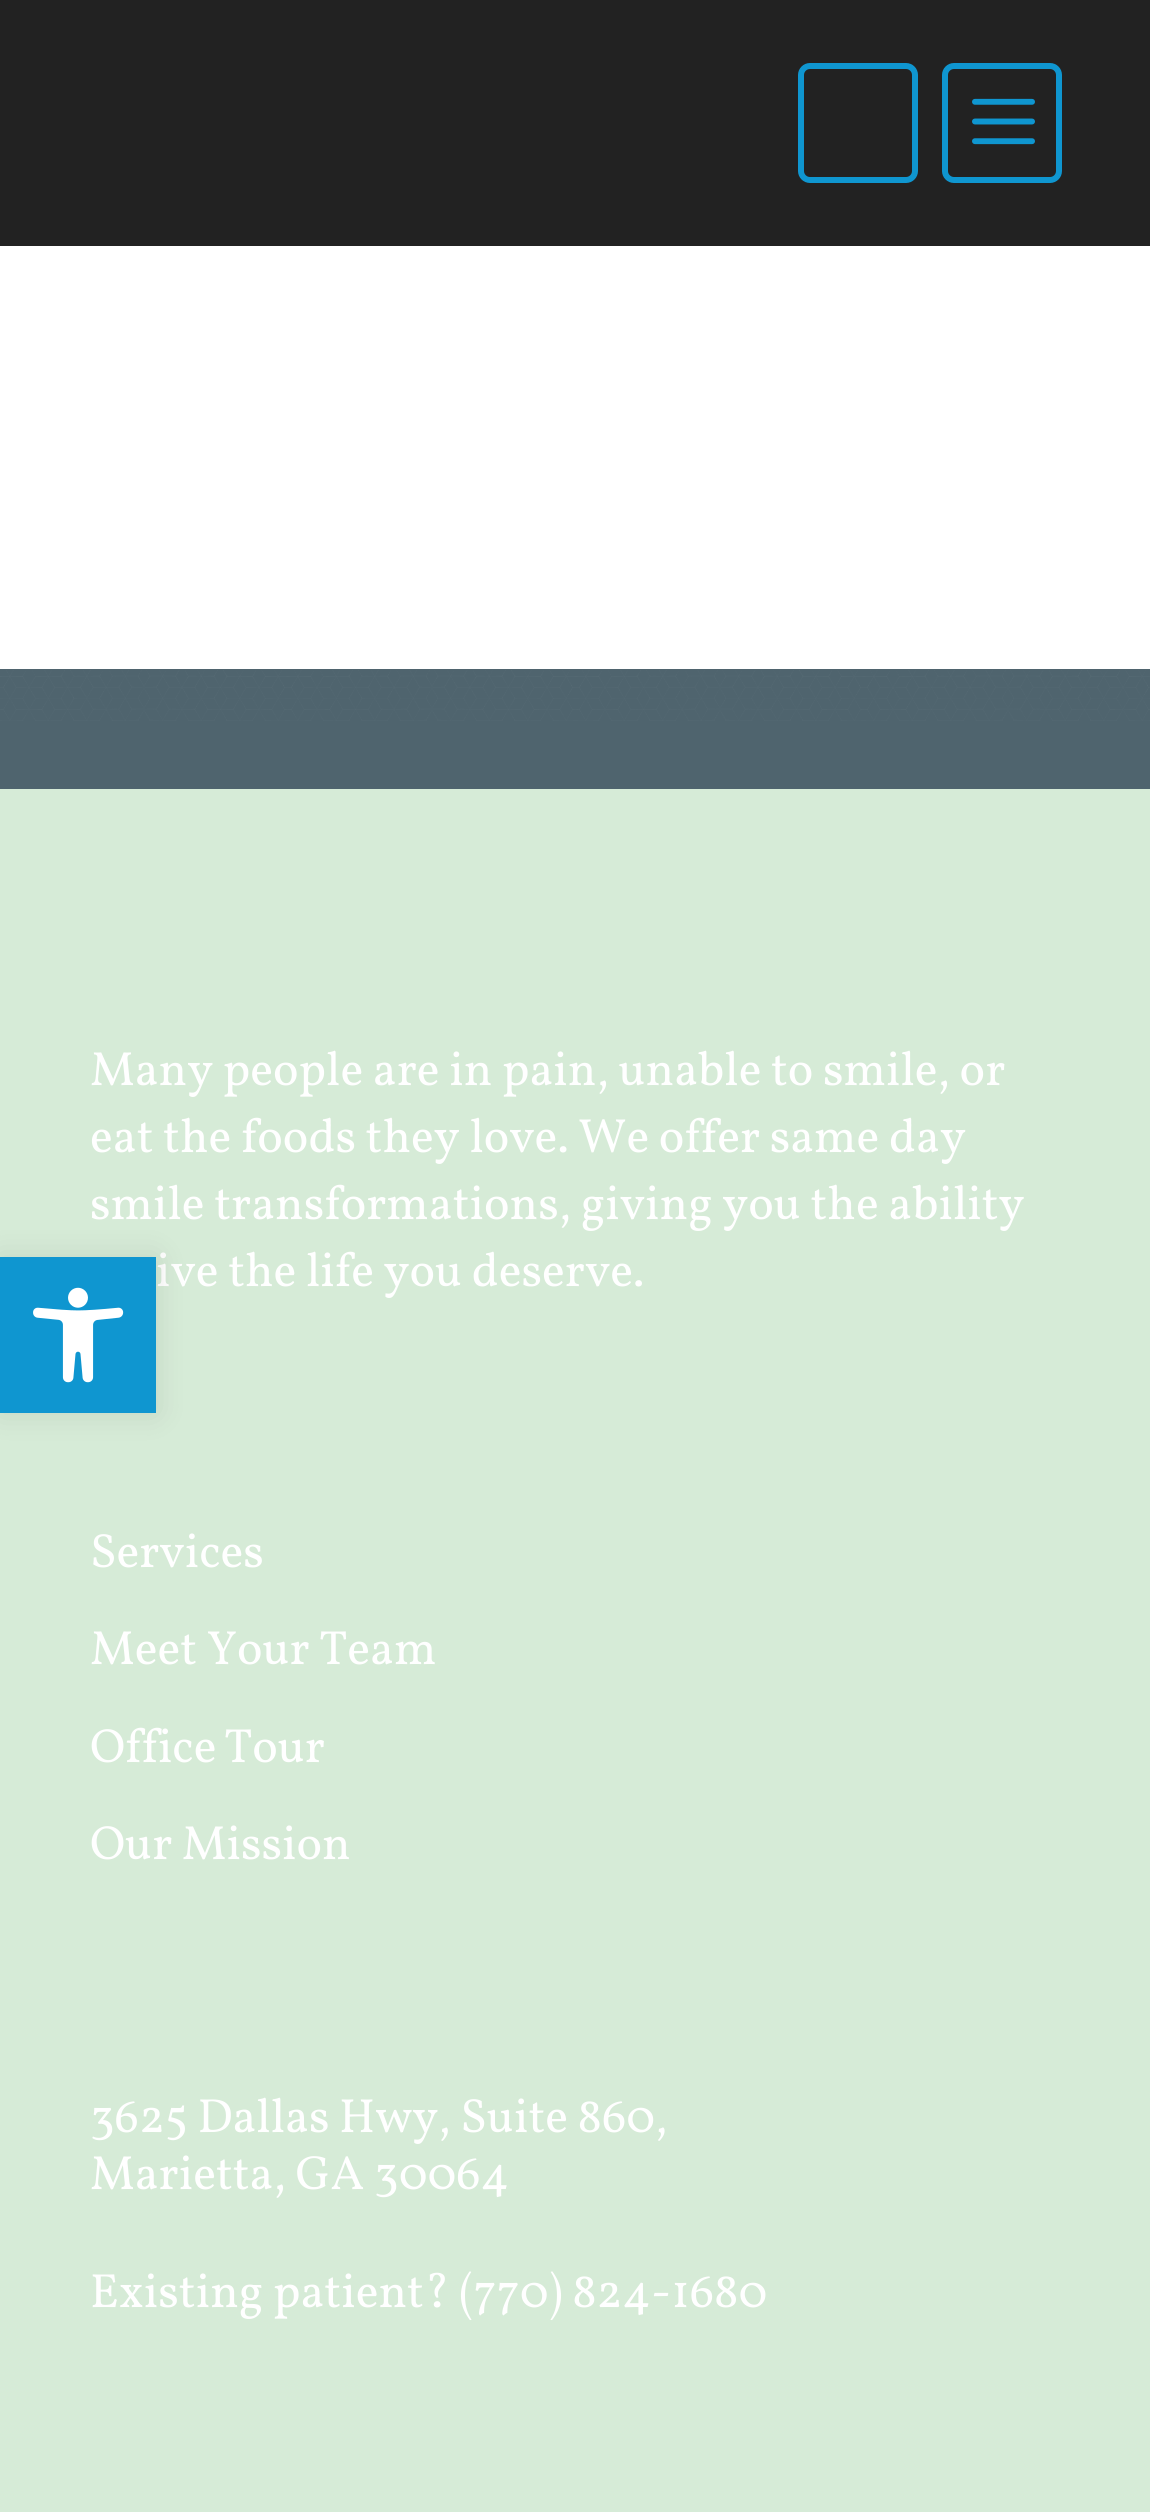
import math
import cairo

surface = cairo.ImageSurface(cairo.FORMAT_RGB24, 1150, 2512)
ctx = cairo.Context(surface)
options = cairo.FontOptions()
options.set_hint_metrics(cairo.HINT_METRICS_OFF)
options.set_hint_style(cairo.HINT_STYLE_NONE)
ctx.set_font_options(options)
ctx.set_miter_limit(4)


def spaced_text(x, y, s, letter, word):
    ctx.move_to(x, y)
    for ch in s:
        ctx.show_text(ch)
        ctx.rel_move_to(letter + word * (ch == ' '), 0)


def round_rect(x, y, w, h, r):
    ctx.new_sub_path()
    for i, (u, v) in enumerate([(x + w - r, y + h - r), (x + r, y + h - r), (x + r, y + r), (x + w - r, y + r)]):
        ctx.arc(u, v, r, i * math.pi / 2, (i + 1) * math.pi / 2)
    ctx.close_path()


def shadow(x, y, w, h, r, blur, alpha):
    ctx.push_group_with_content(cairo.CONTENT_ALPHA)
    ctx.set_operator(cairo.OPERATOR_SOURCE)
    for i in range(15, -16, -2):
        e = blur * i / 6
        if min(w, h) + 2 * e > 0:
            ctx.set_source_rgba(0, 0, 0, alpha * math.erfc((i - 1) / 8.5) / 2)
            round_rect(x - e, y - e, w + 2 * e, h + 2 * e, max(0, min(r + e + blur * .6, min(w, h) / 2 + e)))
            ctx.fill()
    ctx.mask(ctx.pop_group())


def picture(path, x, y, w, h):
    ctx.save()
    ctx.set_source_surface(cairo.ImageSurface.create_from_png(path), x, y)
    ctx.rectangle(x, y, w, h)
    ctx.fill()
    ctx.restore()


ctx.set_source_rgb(1, 1, 1)
ctx.paint()
ctx.set_source_rgb(0.133, 0.133, 0.133)
ctx.rectangle(0, 0, 1150, 246)
ctx.fill()
round_rect(801, 66, 114, 114, 9)
ctx.set_source_rgb(0.059, 0.588, 0.816)
ctx.set_line_width(6)
ctx.stroke()
round_rect(945, 66, 114, 114, 9)
ctx.stroke()
picture("img1.png", 972, 98, 63, 47)
ctx.set_source_rgb(0.31, 0.392, 0.431)
ctx.rectangle(0, 669, 1150, 120)
ctx.fill()
picture("img2.png", 0, 670, 1150, 51)
ctx.set_source_rgb(0.839, 0.918, 0.843)
ctx.rectangle(0, 789, 1150, 1723)
ctx.fill()
ctx.select_font_face("Vollkorn")
ctx.set_font_size(48)
ctx.set_source_rgb(1, 1, 1)
ctx.move_to(90, 1085)
ctx.show_text("Many people are in pain, unable to smile, or")
ctx.move_to(90, 1152)
ctx.show_text("eat the foods they love. We offer same day")
ctx.move_to(90, 1219)
ctx.show_text("smile transformations, giving you the ability")
ctx.move_to(156, 1286)
ctx.show_text("ive the life you deserve.")
ctx.move_to(90, 1567)
ctx.show_text("Services")
ctx.move_to(90, 1664)
ctx.show_text("Meet Your Team")
spaced_text(90, 1762, "Office Tour", 0, -2)
ctx.move_to(90, 1859)
ctx.show_text("Our Mission")
ctx.move_to(90, 2132)
ctx.show_text("3625 Dallas Hwy, Suite 860,")
ctx.move_to(90, 2189)
ctx.show_text("Marietta, GA 30064")
ctx.move_to(90, 2307)
ctx.show_text("Existing patient? (770) 824-1680")
ctx.set_source_rgb(0, 0, 0)
shadow(0, 1257, 156, 156, 0, 15, 0.1)
ctx.set_source_rgb(0.059, 0.588, 0.816)
ctx.rectangle(0, 1257, 156, 156)
ctx.fill()
picture("img3.png", 33, 1287, 91, 96)
surface.write_to_png("page.png")
